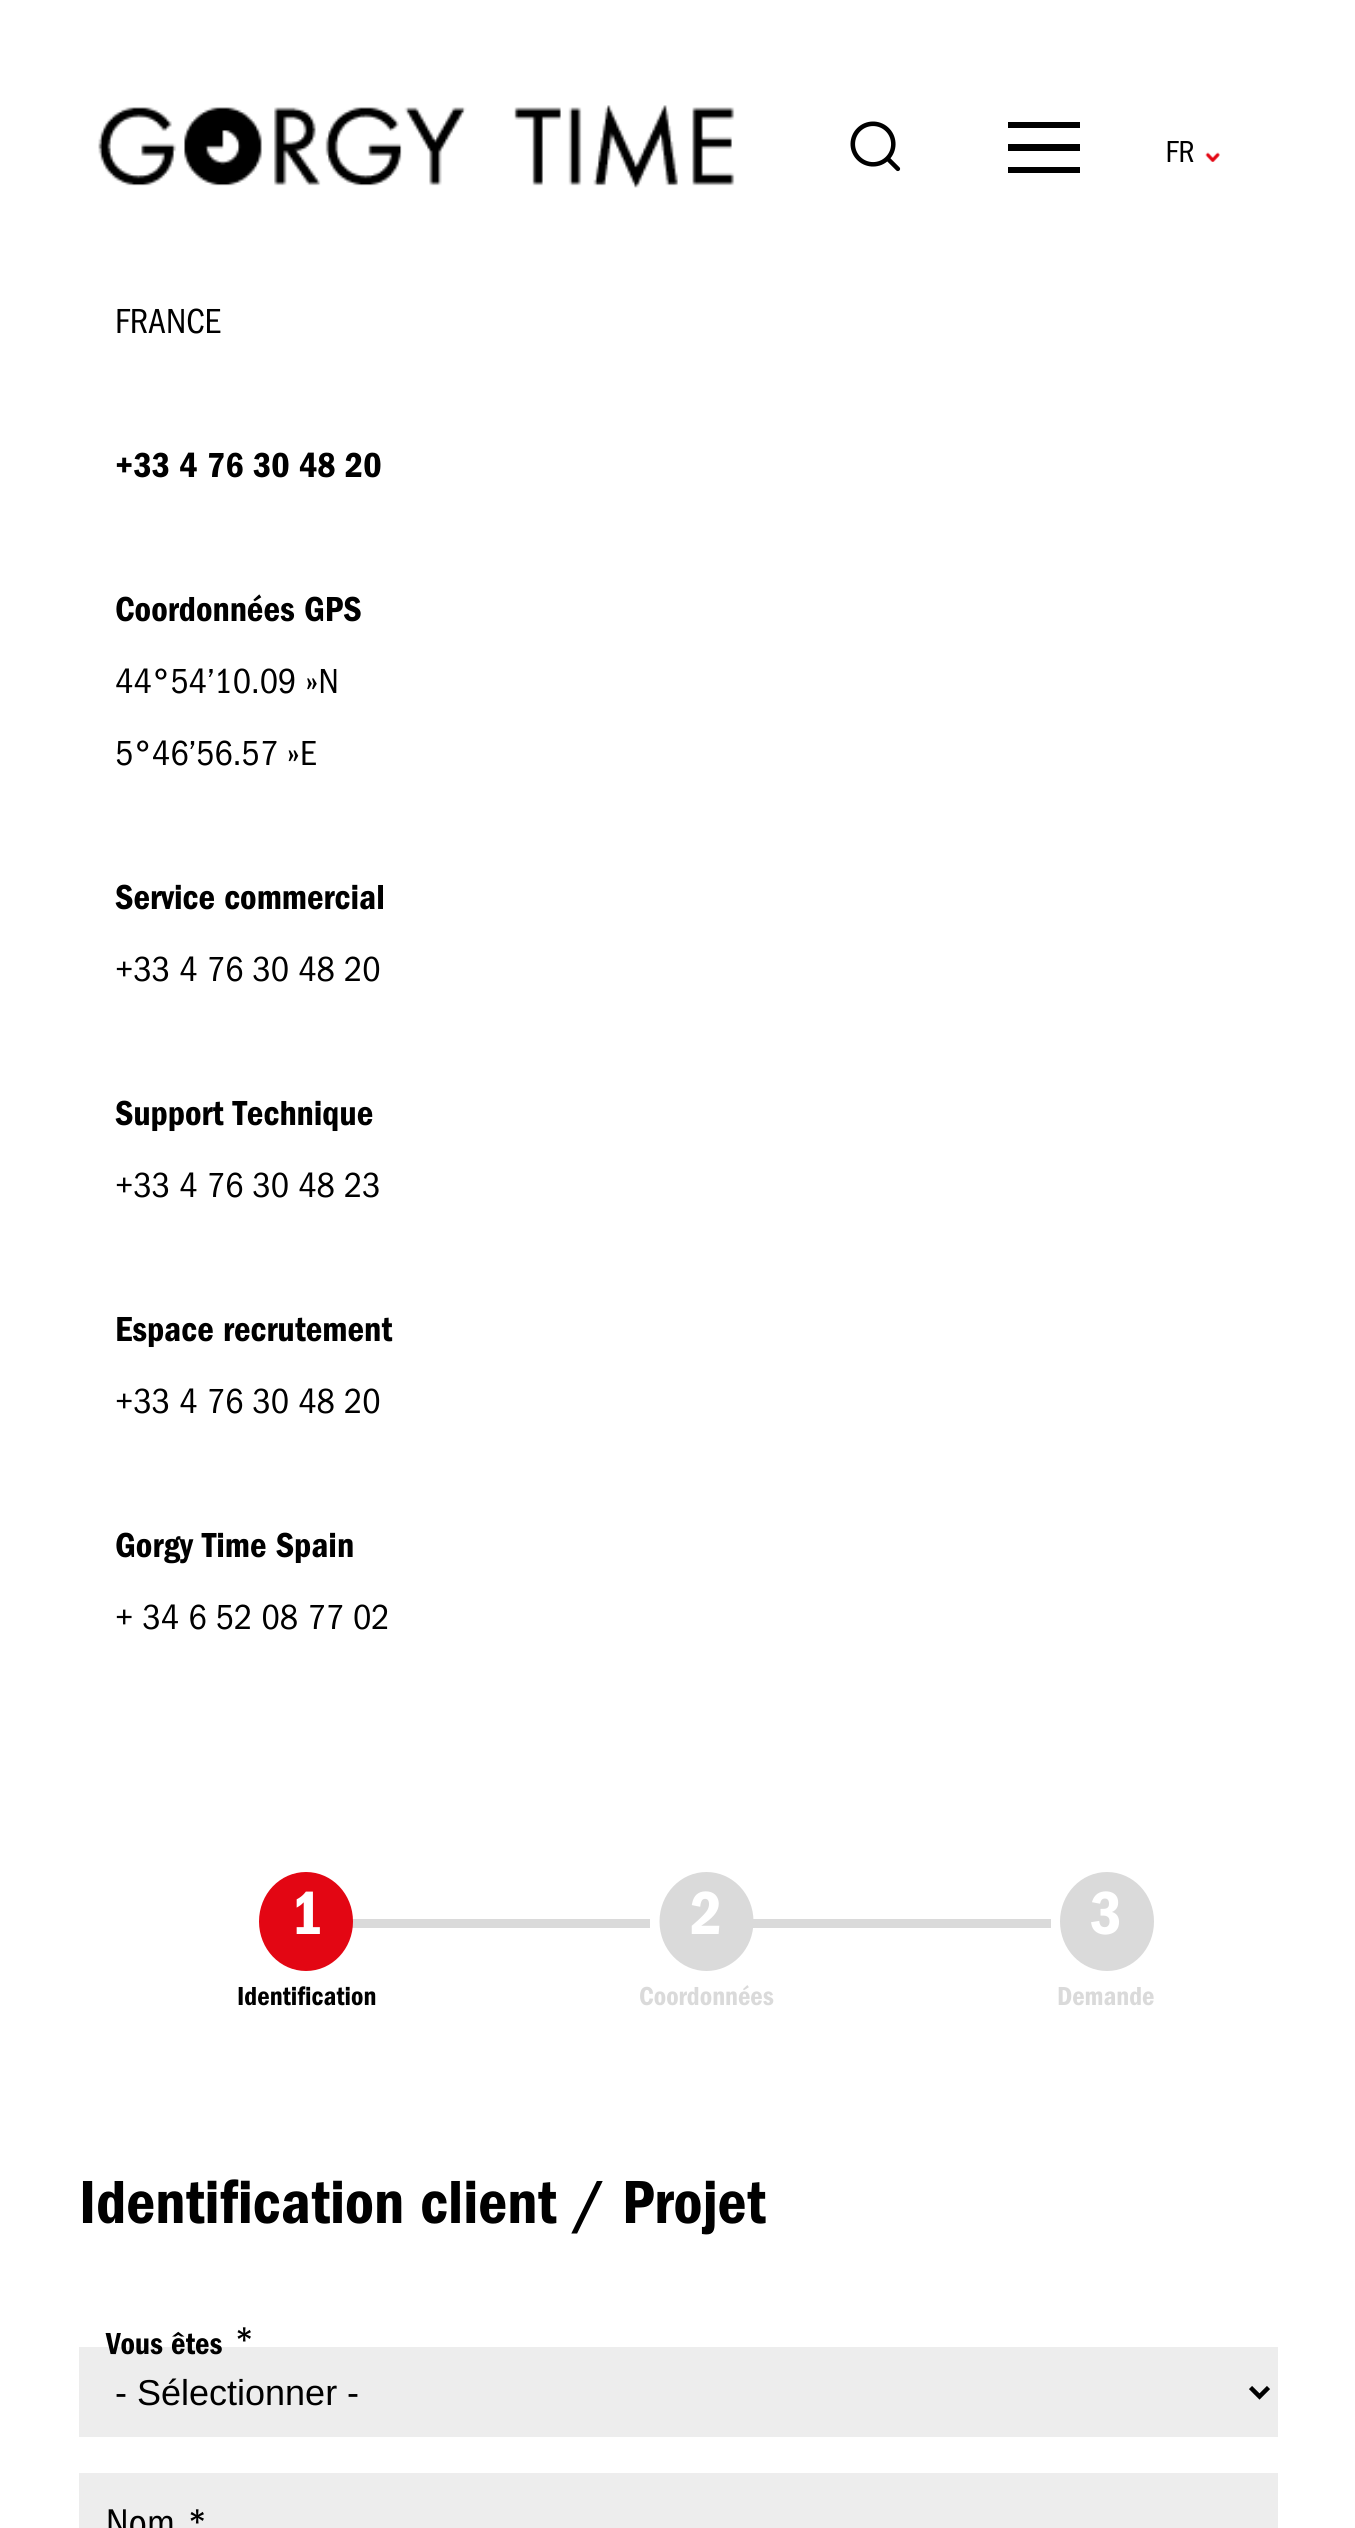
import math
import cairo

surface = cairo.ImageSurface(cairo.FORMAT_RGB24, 1355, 2528)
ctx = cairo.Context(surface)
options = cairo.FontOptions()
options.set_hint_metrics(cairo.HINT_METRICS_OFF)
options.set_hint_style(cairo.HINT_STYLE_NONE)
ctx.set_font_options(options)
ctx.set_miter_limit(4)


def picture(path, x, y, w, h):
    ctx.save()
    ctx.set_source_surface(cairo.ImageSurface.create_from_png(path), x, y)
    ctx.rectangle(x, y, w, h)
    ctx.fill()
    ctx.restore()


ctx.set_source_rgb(1, 1, 1)
ctx.paint()
picture("img1.png", 98, 105, 637, 83)
picture("img2.png", 850, 121, 51, 51)
ctx.set_source_rgb(0, 0, 0)
ctx.rectangle(1008, 122, 72, 6)
ctx.fill()
ctx.rectangle(1008, 144, 72, 7)
ctx.fill()
ctx.rectangle(1008, 167, 72, 6)
ctx.fill()
picture("img3.png", 1167, 141, 27, 21)
picture("img4.png", 1205, 152, 15, 10)
ctx.select_font_face("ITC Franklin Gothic")
ctx.set_font_size(36)
ctx.move_to(115, 333)
ctx.show_text("FRANCE")
ctx.select_font_face("ITC Franklin Gothic SemiBold")
ctx.move_to(115, 477)
ctx.show_text("+33 4 76 30 48 20")
ctx.move_to(115, 621)
ctx.show_text("Coordonnées GPS")
ctx.select_font_face("ITC Franklin Gothic")
ctx.move_to(115, 693)
ctx.show_text("44°54’10.09 »N")
ctx.move_to(115, 765)
ctx.show_text("5°46’56.57 »E")
ctx.select_font_face("ITC Franklin Gothic SemiBold")
ctx.move_to(115, 909)
ctx.show_text("Service commercial")
ctx.select_font_face("ITC Franklin Gothic")
ctx.move_to(115, 981)
ctx.show_text("+33 4 76 30 48 20")
ctx.select_font_face("ITC Franklin Gothic SemiBold")
ctx.move_to(115, 1125)
ctx.show_text("Support Technique")
ctx.select_font_face("ITC Franklin Gothic")
ctx.move_to(115, 1197)
ctx.show_text("+33 4 76 30 48 23")
ctx.select_font_face("ITC Franklin Gothic SemiBold")
ctx.move_to(115, 1341)
ctx.show_text("Espace recrutement")
ctx.select_font_face("ITC Franklin Gothic")
ctx.move_to(115, 1413)
ctx.show_text("+33 4 76 30 48 20")
ctx.select_font_face("ITC Franklin Gothic SemiBold")
ctx.move_to(115, 1557)
ctx.show_text("Gorgy Time Spain")
ctx.select_font_face("ITC Franklin Gothic")
ctx.move_to(115, 1629)
ctx.show_text("+ 34 6 52 08 77 02")
ctx.set_source_rgb(0.855, 0.855, 0.855)
ctx.rectangle(352, 1919, 298, 9)
ctx.fill()
ctx.set_source_rgb(0.89, 0.024, 0.075)
ctx.new_path()
ctx.move_to(306, 1872)
ctx.curve_to(332, 1872, 353, 1894, 353, 1921.5)
ctx.curve_to(353, 1949, 332, 1971, 306, 1971)
ctx.curve_to(280, 1971, 259, 1949, 259, 1921.5)
ctx.curve_to(259, 1894, 280, 1872, 306, 1872)
ctx.close_path()
ctx.fill()
ctx.select_font_face("ITC Franklin Gothic SemiBold")
ctx.set_font_size(63)
ctx.set_source_rgb(1, 1, 1)
ctx.move_to(291, 1934)
ctx.show_text("1")
ctx.set_font_size(27)
ctx.set_source_rgb(0, 0, 0)
ctx.move_to(237, 2005)
ctx.show_text("Identification")
ctx.set_source_rgb(0.855, 0.855, 0.855)
ctx.rectangle(753, 1919, 298, 9)
ctx.fill()
ctx.new_path()
ctx.move_to(706.5, 1872)
ctx.curve_to(732.5, 1872, 753.5, 1894, 753.5, 1921.5)
ctx.curve_to(753.5, 1949, 732.5, 1971, 706.5, 1971)
ctx.curve_to(680.5, 1971, 659.5, 1949, 659.5, 1921.5)
ctx.curve_to(659.5, 1894, 680.5, 1872, 706.5, 1872)
ctx.close_path()
ctx.fill()
ctx.set_font_size(63)
ctx.set_source_rgb(1, 1, 1)
ctx.move_to(690, 1934)
ctx.show_text("2")
ctx.set_font_size(27)
ctx.set_source_rgb(0.855, 0.855, 0.855)
ctx.move_to(639, 2005)
ctx.show_text("Coordonnées")
ctx.new_path()
ctx.move_to(1107, 1872)
ctx.curve_to(1133, 1872, 1154, 1894, 1154, 1921.5)
ctx.curve_to(1154, 1949, 1133, 1971, 1107, 1971)
ctx.curve_to(1081, 1971, 1060, 1949, 1060, 1921.5)
ctx.curve_to(1060, 1894, 1081, 1872, 1107, 1872)
ctx.close_path()
ctx.fill()
ctx.set_font_size(63)
ctx.set_source_rgb(1, 1, 1)
ctx.move_to(1090, 1934)
ctx.show_text("3")
ctx.set_font_size(27)
ctx.set_source_rgb(0.855, 0.855, 0.855)
ctx.move_to(1057, 2005)
ctx.show_text("Demande")
ctx.set_font_size(63)
ctx.set_source_rgb(0, 0, 0)
ctx.move_to(79, 2223)
ctx.show_text("Identification client / Projet")
ctx.set_source_rgb(0.929, 0.929, 0.929)
ctx.rectangle(79, 2347, 1199, 90)
ctx.fill()
ctx.set_font_size(31.5)
ctx.set_source_rgb(0, 0, 0)
ctx.move_to(106, 2354)
ctx.show_text("Vous êtes")
ctx.select_font_face("ITC Franklin Gothic")
ctx.set_font_size(40)
ctx.move_to(234, 2354)
ctx.show_text("*")
ctx.new_path()
ctx.move_to(1250.5, 2387.5)
ctx.line_to(1259.5, 2396.5)
ctx.line_to(1268.5, 2387.5)
ctx.set_line_width(4.5)
ctx.stroke()
ctx.select_font_face("Liberation Sans")
ctx.set_font_size(36)
ctx.move_to(115, 2405)
ctx.show_text("- Sélectionner -")
ctx.set_source_rgb(0.929, 0.929, 0.929)
ctx.rectangle(79, 2473, 1199, 55)
ctx.fill()
ctx.select_font_face("ITC Franklin Gothic")
ctx.set_font_size(40)
ctx.set_source_rgb(0, 0, 0)
ctx.move_to(106, 2536)
ctx.show_text("Nom")
ctx.move_to(187, 2536)
ctx.show_text("*")
surface.write_to_png("page.png")
